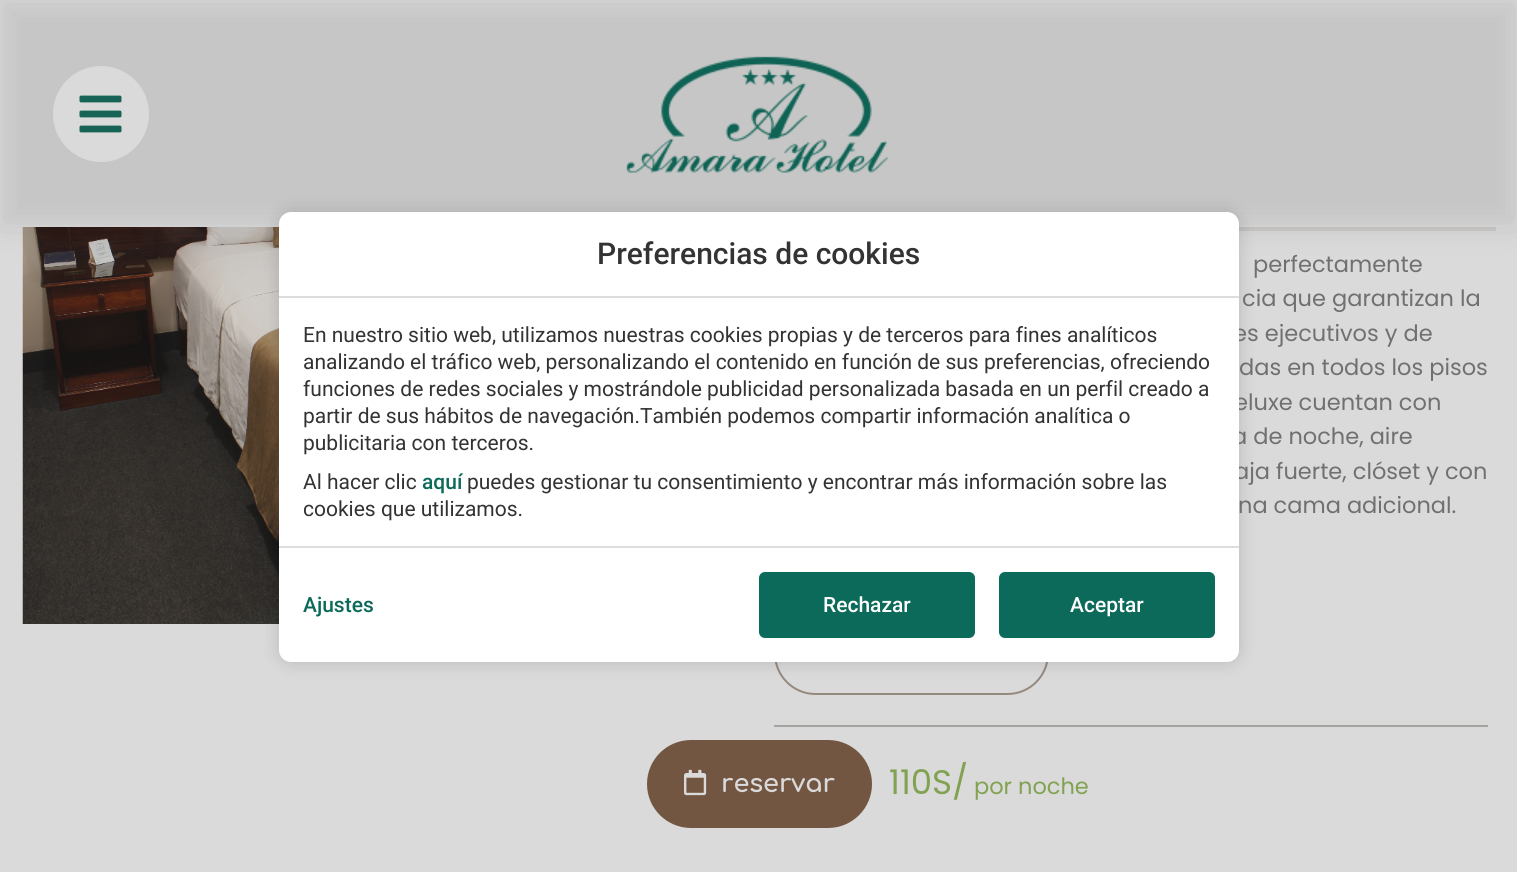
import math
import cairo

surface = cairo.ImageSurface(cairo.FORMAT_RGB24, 1517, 872)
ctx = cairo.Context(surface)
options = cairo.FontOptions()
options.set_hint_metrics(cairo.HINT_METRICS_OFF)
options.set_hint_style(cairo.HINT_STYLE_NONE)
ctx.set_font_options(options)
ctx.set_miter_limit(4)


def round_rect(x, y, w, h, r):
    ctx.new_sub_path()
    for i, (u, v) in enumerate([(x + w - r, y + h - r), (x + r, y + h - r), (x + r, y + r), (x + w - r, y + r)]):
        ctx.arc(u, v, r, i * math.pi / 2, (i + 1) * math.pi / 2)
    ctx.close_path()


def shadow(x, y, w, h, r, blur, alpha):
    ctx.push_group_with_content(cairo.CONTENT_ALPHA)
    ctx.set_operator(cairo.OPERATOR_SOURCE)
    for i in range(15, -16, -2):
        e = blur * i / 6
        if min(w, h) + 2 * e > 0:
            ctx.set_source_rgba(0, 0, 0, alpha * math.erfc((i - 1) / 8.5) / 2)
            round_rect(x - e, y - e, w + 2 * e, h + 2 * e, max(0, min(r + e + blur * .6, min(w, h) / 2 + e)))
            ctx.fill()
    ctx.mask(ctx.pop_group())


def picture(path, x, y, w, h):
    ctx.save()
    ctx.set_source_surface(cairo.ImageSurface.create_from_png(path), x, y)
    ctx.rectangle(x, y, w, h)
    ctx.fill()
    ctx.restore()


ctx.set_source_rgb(0.855, 0.855, 0.855)
ctx.paint()
picture("img4.png", 22, 227, 257, 397)
ctx.set_source_rgb(0.788, 0.784, 0.776)
ctx.rectangle(1239, 227, 257, 4)
ctx.fill()
ctx.set_source_rgb(0.055, 0.055, 0.055)
shadow(0, 0, 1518, 227, 0, 15, 0.1)
ctx.set_source_rgb(0.855, 0.855, 0.855)
ctx.arc(101, 114, 48, 0, 2 * math.pi)
ctx.fill()
picture("img1.png", 79, 95, 43, 38)
picture("img2.png", 626, 56, 263, 117)
round_rect(775, 613, 273, 81, 40.5)
ctx.set_source_rgb(0.584, 0.541, 0.502)
ctx.stroke()
ctx.set_source_rgb(0, 0, 0)
shadow(279, 212, 960, 450, 12, 9, 0.15)
ctx.select_font_face("Poppins")
ctx.set_font_size(22.5)
ctx.set_source_rgb(0.439, 0.439, 0.439)
ctx.move_to(1233, 341)
ctx.show_text("es ejecutivos y de")
ctx.move_to(1234, 410)
ctx.show_text("eluxe cuentan con")
ctx.move_to(1232, 444)
ctx.show_text("a de noche, aire")
ctx.move_to(1234, 479)
ctx.show_text("aja fuerte, clóset y con")
ctx.set_source_rgb(1, 1, 1)
round_rect(279, 212, 960, 450, 12)
ctx.fill()
ctx.set_source_rgb(0.867, 0.867, 0.867)
ctx.rectangle(279, 296, 960, 2)
ctx.fill()
ctx.select_font_face("Roboto Medium")
ctx.set_font_size(30)
ctx.set_source_rgb(0.2, 0.2, 0.2)
ctx.move_to(597, 264)
ctx.show_text("Preferencias de cookies")
ctx.set_source_rgb(0.867, 0.867, 0.867)
ctx.rectangle(279, 546, 960, 2)
ctx.fill()
ctx.select_font_face("Roboto")
ctx.set_font_size(21)
ctx.set_source_rgb(0.2, 0.2, 0.2)
ctx.move_to(303, 342)
ctx.show_text("En nuestro sitio web, utilizamos nuestras cookies propias y de terceros para fines analíticos")
ctx.move_to(303, 369)
ctx.show_text("analizando el tráfico web, personalizando el contenido en función de sus preferencias, ofreciendo")
ctx.move_to(303, 396)
ctx.show_text("funciones de redes sociales y mostrándole publicidad personalizada basada en un perfil creado a")
ctx.move_to(303, 423)
ctx.show_text("partir de sus hábitos de navegación.También podemos compartir información analítica o")
ctx.move_to(303, 450)
ctx.show_text("publicitaria con terceros.")
ctx.move_to(303, 489)
ctx.show_text("Al hacer clic")
ctx.select_font_face("Roboto Medium")
ctx.set_source_rgb(0.043, 0.416, 0.349)
ctx.move_to(422, 489)
ctx.show_text("aquí")
ctx.select_font_face("Roboto")
ctx.set_source_rgb(0.2, 0.2, 0.2)
ctx.move_to(467, 489)
ctx.show_text("puedes gestionar tu consentimiento y encontrar más información sobre las")
ctx.move_to(303, 516)
ctx.show_text("cookies que utilizamos.")
ctx.select_font_face("Roboto Medium")
ctx.set_source_rgb(0.043, 0.416, 0.349)
ctx.move_to(303, 612)
ctx.show_text("Ajustes")
round_rect(759, 572, 216, 66, 6)
ctx.fill()
ctx.set_source_rgb(1, 1, 1)
ctx.move_to(823, 612)
ctx.show_text("Rechazar")
ctx.set_source_rgb(0.043, 0.416, 0.349)
round_rect(999, 572, 216, 66, 6)
ctx.fill()
ctx.set_source_rgb(1, 1, 1)
ctx.move_to(1070, 612)
ctx.show_text("Aceptar")
ctx.set_source_rgb(0.447, 0.337, 0.259)
round_rect(647, 740, 225, 88, 44)
ctx.fill()
picture("img3.png", 684, 769, 23, 27)
ctx.select_font_face("Comfortaa", cairo.FONT_SLANT_NORMAL, cairo.FONT_WEIGHT_BOLD)
ctx.set_font_size(25.5)
ctx.set_source_rgb(0.855, 0.855, 0.855)
ctx.move_to(721, 792)
ctx.show_text("reservar")
ctx.select_font_face("Poppins")
ctx.set_font_size(22.5)
ctx.set_source_rgb(0.439, 0.439, 0.439)
ctx.move_to(1253, 272)
ctx.show_text("perfectamente")
ctx.move_to(1242, 306)
ctx.show_text("cia que garantizan la")
ctx.move_to(1239, 375)
ctx.show_text("das en todos los pisos")
ctx.move_to(1238, 513)
ctx.show_text("na cama adicional.")
ctx.set_source_rgb(0.647, 0.643, 0.631)
ctx.rectangle(774, 725, 714, 2)
ctx.fill()
ctx.set_font_size(34)
ctx.set_source_rgb(0.506, 0.635, 0.318)
ctx.move_to(889, 794)
ctx.show_text("110S/")
ctx.set_font_size(22.5)
ctx.move_to(974, 794)
ctx.show_text("por noche")
surface.write_to_png("page.png")
